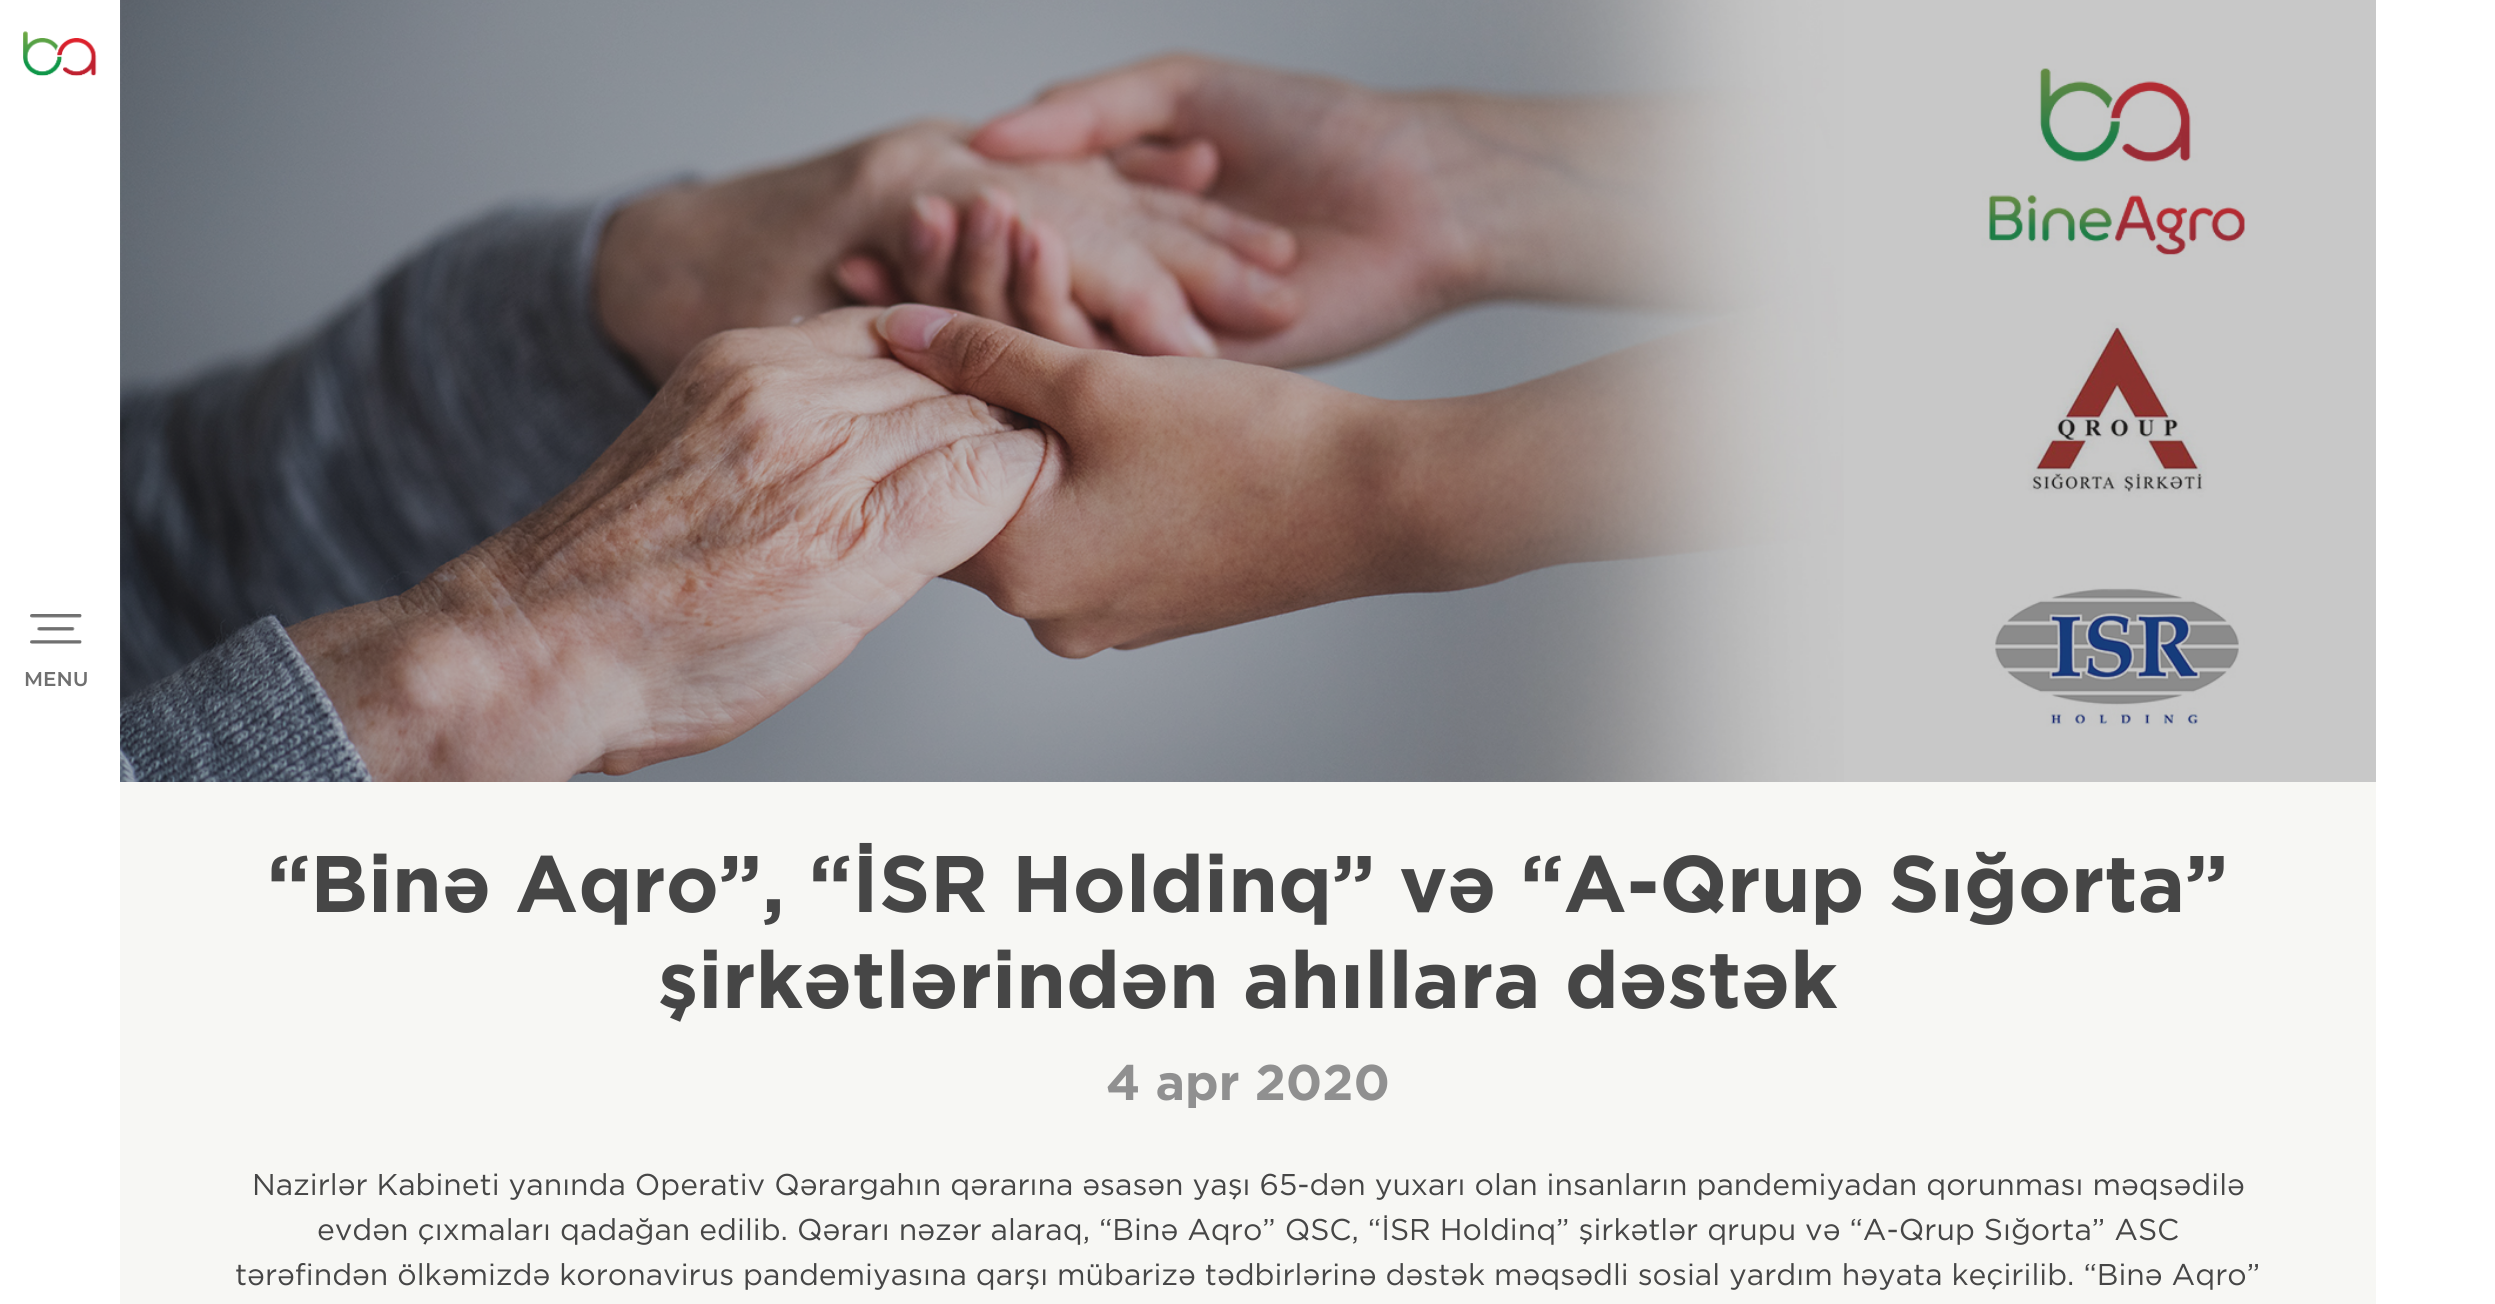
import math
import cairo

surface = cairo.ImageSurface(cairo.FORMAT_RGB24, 2495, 1304)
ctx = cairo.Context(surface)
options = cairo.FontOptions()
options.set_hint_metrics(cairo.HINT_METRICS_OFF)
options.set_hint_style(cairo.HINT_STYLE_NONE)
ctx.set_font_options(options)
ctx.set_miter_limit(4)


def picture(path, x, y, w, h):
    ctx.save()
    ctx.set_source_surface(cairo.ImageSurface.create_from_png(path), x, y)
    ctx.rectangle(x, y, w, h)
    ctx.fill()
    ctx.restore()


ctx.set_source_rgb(1, 1, 1)
ctx.paint()
ctx.set_source_rgb(0.784, 0.784, 0.784)
ctx.rectangle(2245, 0, 131, 782)
ctx.fill()
picture("img1.png", 23, 31, 74, 45)
picture("img2.png", 30, 614, 52, 30)
ctx.select_font_face("Montserrat SemiBold")
ctx.set_font_size(20)
ctx.set_source_rgb(0.439, 0.439, 0.439)
ctx.move_to(24, 686)
ctx.show_text("MENU")
picture("img3.png", 120, 0, 2125, 782)
ctx.set_source_rgb(0.965, 0.965, 0.957)
ctx.rectangle(120, 782, 2256, 522)
ctx.fill()
ctx.select_font_face("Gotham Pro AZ", cairo.FONT_SLANT_NORMAL, cairo.FONT_WEIGHT_BOLD)
ctx.set_font_size(80)
ctx.set_source_rgb(0.275, 0.275, 0.275)
ctx.move_to(267, 912)
ctx.show_text("“Binə Aqro”, “İSR Holdinq” və “A-Qrup Sığorta”")
ctx.move_to(658, 1008)
ctx.show_text("şirkətlərindən ahıllara dəstək")
ctx.set_font_size(50)
ctx.set_source_rgb(0.565, 0.565, 0.565)
ctx.move_to(1106, 1100)
ctx.show_text("4 apr 2020")
ctx.select_font_face("Gotham Pro AZ")
ctx.set_font_size(30)
ctx.set_source_rgb(0.275, 0.275, 0.275)
ctx.move_to(252, 1195)
ctx.show_text("Nazirlər Kabineti yanında Operativ Qərargahın qərarına əsasən yaşı 65-dən yuxarı olan insanların pandemiyadan qorunması məqsədilə")
ctx.move_to(317, 1240)
ctx.show_text("evdən çıxmaları qadağan edilib. Qərarı nəzər alaraq, “Binə Aqro” QSC, “İSR Holdinq” şirkətlər qrupu və “A-Qrup Sığorta” ASC")
ctx.move_to(235, 1285)
ctx.show_text("tərəfindən ölkəmizdə koronavirus pandemiyasına qarşı mübarizə tədbirlərinə dəstək məqsədli sosial yardım həyata keçirilib. “Binə Aqro”")
surface.write_to_png("page.png")
